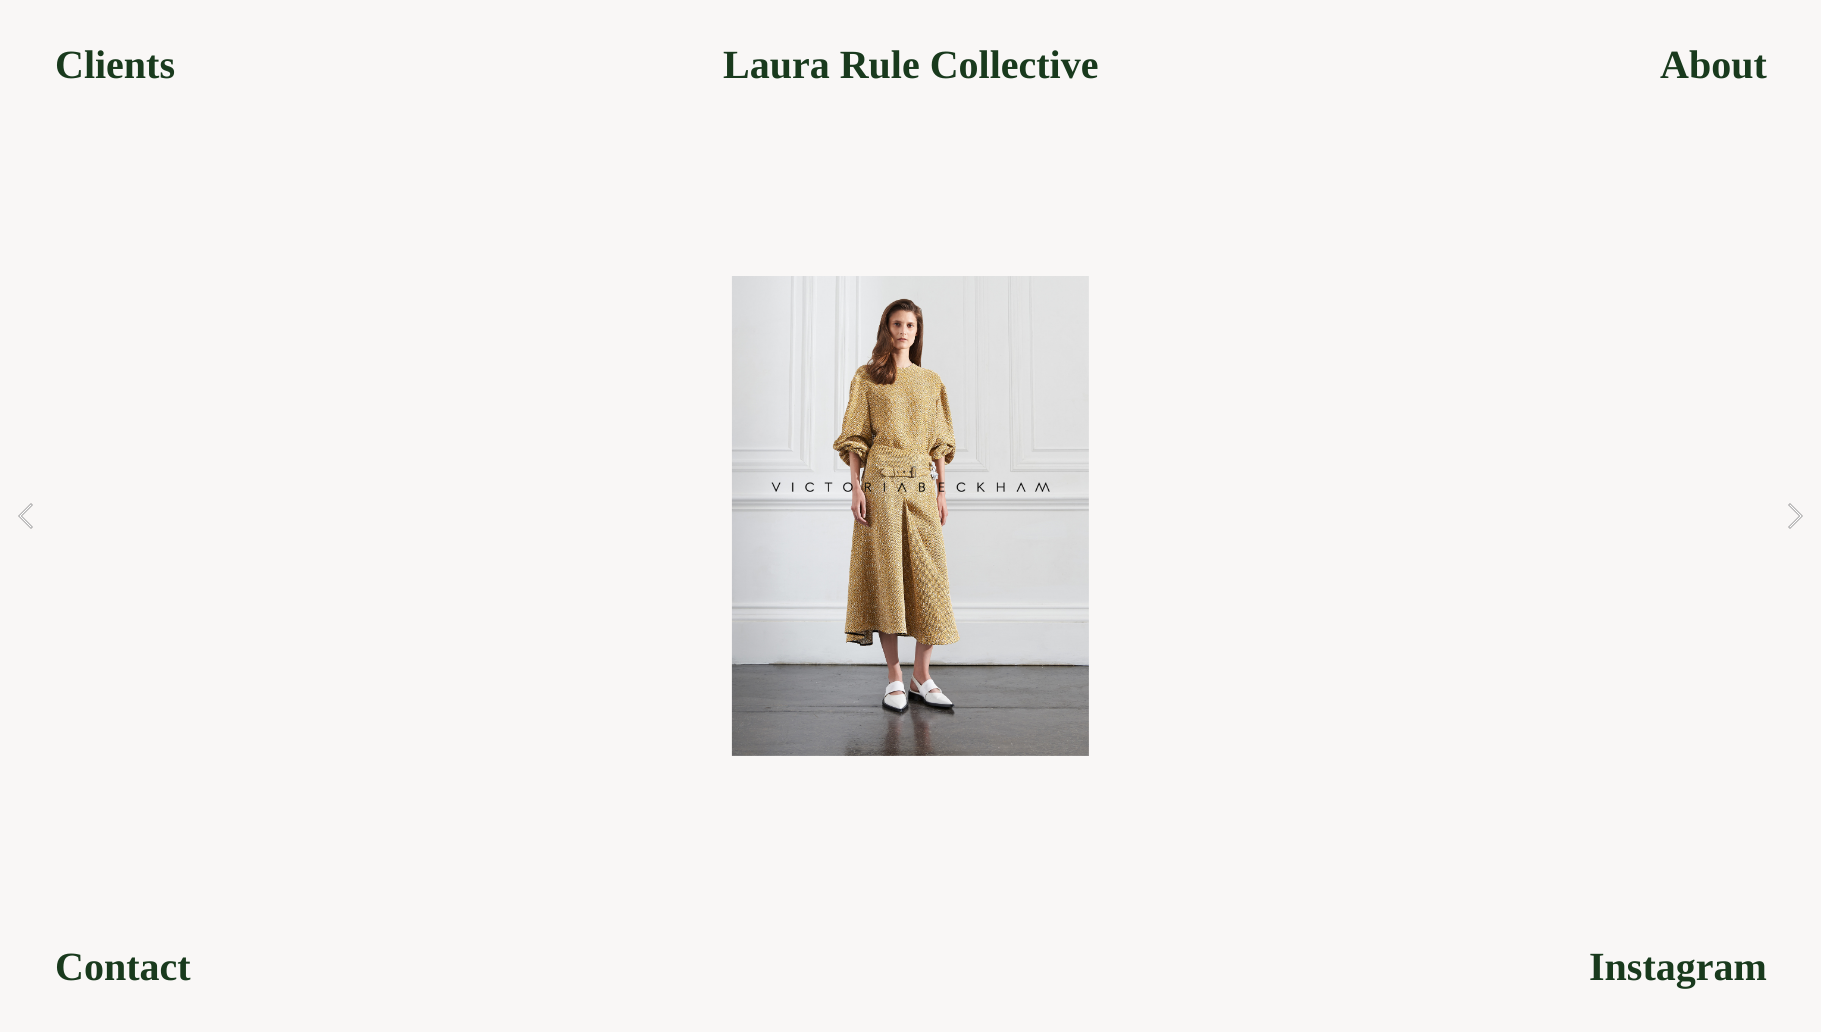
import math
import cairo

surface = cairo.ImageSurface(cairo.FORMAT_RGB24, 1821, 1032)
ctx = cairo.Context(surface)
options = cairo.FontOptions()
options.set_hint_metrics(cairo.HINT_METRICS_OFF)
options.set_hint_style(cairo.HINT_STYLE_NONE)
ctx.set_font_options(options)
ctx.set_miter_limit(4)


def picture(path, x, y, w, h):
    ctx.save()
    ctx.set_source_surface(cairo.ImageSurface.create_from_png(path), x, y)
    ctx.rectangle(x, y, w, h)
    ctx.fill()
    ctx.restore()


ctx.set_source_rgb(0.973, 0.965, 0.961)
ctx.paint()
ctx.select_font_face("Liberation Serif", cairo.FONT_SLANT_NORMAL, cairo.FONT_WEIGHT_BOLD)
ctx.set_font_size(40)
ctx.set_source_rgb(0.098, 0.227, 0.114)
ctx.move_to(55, 78)
ctx.show_text("Clients")
ctx.move_to(1660, 78)
ctx.show_text("About")
ctx.move_to(55, 980)
ctx.show_text("Contact")
ctx.move_to(1589, 980)
ctx.show_text("Instagram")
ctx.move_to(723, 78)
ctx.show_text("Laura Rule Collective")
ctx.new_path()
ctx.move_to(31, 527)
ctx.line_to(20, 516)
ctx.line_to(31, 505)
ctx.set_source_rgb(0.388, 0.384, 0.384)
ctx.set_line_width(2.5)
ctx.set_line_cap(cairo.LINE_CAP_SQUARE)
ctx.stroke()
ctx.new_path()
ctx.move_to(31, 527)
ctx.line_to(20, 516)
ctx.line_to(31, 505)
ctx.set_source_rgb(1, 1, 1)
ctx.set_line_width(1.5)
ctx.stroke()
picture("img1.png", 731, 276, 358, 480)
ctx.new_path()
ctx.move_to(1790, 527)
ctx.line_to(1801, 516)
ctx.line_to(1790, 505)
ctx.set_source_rgb(0.388, 0.384, 0.384)
ctx.set_line_width(2.5)
ctx.stroke()
ctx.new_path()
ctx.move_to(1790, 527)
ctx.line_to(1801, 516)
ctx.line_to(1790, 505)
ctx.set_source_rgb(1, 1, 1)
ctx.set_line_width(1.5)
ctx.stroke()
surface.write_to_png("page.png")
